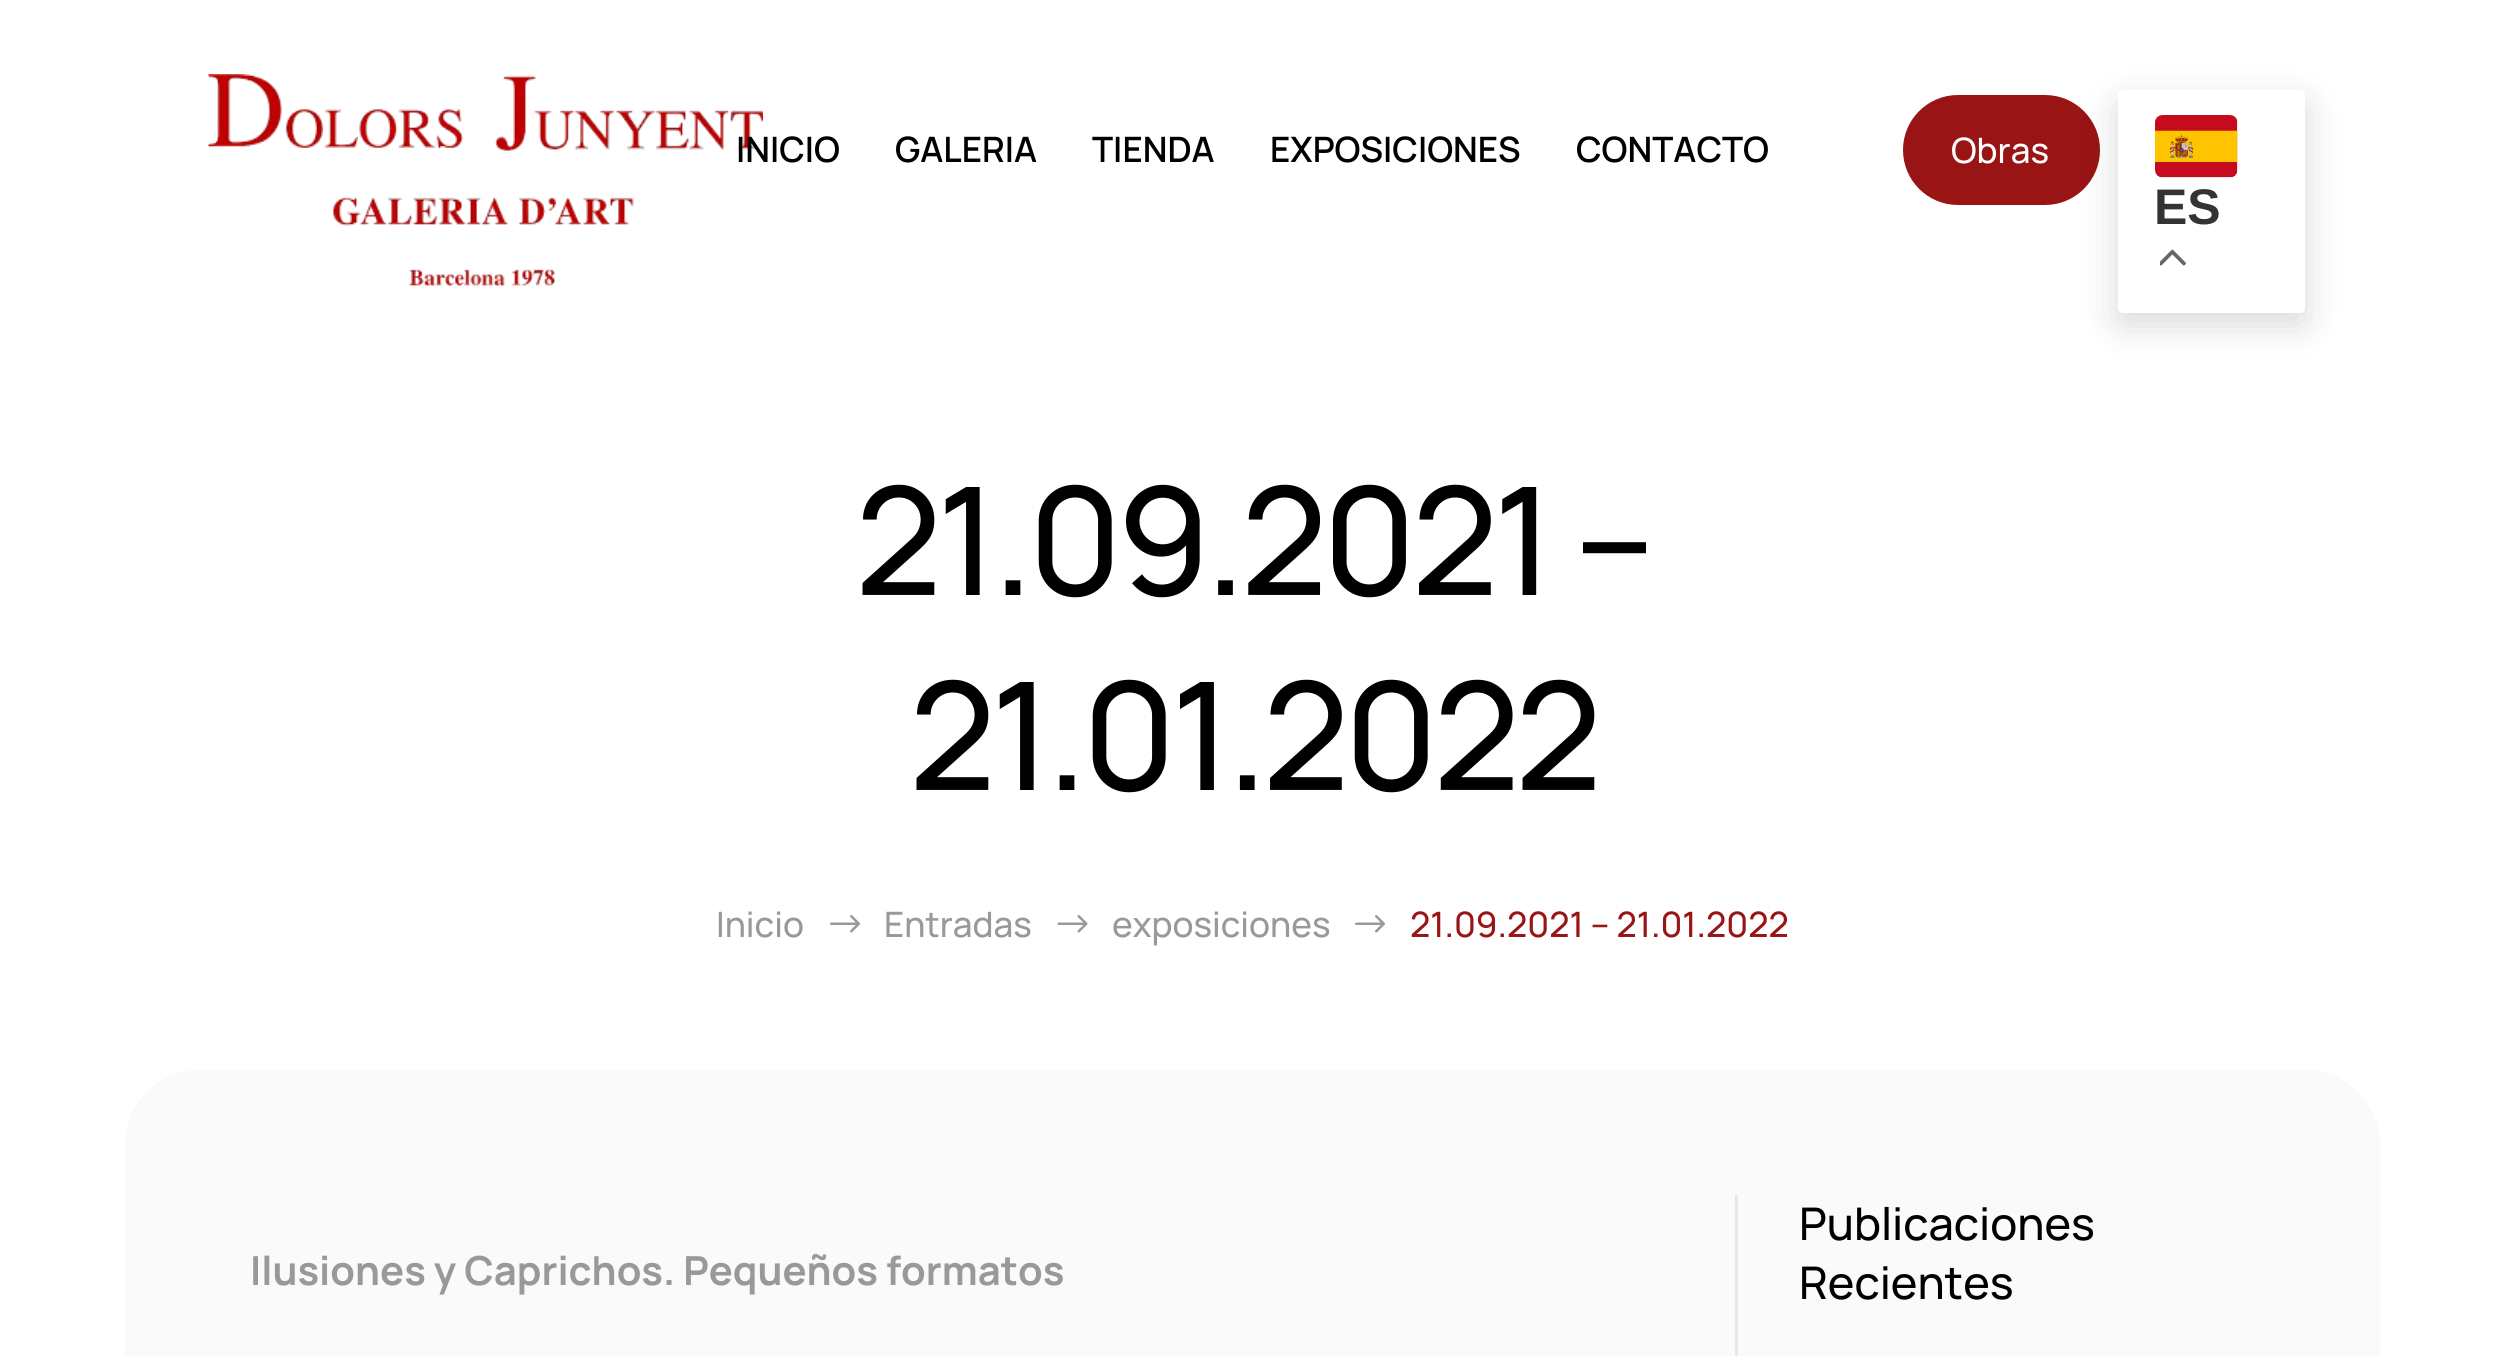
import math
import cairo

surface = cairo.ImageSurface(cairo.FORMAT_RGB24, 2503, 1356)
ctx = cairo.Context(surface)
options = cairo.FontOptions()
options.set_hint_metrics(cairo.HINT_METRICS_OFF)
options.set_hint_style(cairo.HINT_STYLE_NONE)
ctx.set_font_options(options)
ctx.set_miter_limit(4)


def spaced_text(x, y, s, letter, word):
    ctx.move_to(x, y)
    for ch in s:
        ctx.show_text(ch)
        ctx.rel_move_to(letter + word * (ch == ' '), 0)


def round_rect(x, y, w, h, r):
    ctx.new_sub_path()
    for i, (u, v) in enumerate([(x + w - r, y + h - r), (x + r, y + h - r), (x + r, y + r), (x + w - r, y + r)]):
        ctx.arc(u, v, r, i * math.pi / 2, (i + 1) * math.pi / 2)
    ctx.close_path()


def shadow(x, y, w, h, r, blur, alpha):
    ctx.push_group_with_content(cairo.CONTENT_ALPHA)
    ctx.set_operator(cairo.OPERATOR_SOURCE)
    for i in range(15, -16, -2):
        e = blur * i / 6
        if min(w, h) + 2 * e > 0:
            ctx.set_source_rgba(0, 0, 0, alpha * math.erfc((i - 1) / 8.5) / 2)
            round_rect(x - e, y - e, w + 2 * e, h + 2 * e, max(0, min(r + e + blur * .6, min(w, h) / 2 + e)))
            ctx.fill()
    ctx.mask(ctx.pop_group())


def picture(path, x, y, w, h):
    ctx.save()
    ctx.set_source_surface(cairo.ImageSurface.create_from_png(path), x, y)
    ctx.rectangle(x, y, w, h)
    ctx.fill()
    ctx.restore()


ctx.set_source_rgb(1, 1, 1)
ctx.paint()
picture("img1.png", 208, 74, 555, 212)
ctx.select_font_face("Manrope SemiBold")
ctx.set_font_size(35)
ctx.set_source_rgb(0, 0, 0)
ctx.move_to(736, 162)
ctx.show_text("INICIO")
ctx.move_to(895, 162)
ctx.show_text("GALERIA")
ctx.move_to(1092, 162)
ctx.show_text("TIENDA")
ctx.move_to(1270, 162)
ctx.show_text("EXPOSICIONES")
ctx.move_to(1576, 162)
ctx.show_text("CONTACTO")
ctx.set_source_rgb(0.6, 0.082, 0.082)
round_rect(1903, 95, 197, 110, 55)
ctx.fill()
ctx.select_font_face("Manrope Medium")
ctx.set_source_rgb(1, 1, 1)
ctx.move_to(1951, 163)
ctx.show_text("Obras")
ctx.set_source_rgb(0, 0, 0)
shadow(2118, 103, 187, 222, 5, 19, 0.15)
ctx.set_source_rgb(1, 1, 1)
round_rect(2118, 90, 187, 223, 5)
ctx.fill()
picture("img2.png", 2155, 115, 83, 63)
ctx.select_font_face("Liberation Sans", cairo.FONT_SLANT_NORMAL, cairo.FONT_WEIGHT_BOLD)
ctx.set_font_size(50)
ctx.set_source_rgb(0.2, 0.2, 0.2)
ctx.move_to(2154, 224)
ctx.show_text("ES")
picture("img3.png", 2160, 249, 26, 17)
ctx.select_font_face("Manrope Medium")
ctx.set_font_size(150)
ctx.set_source_rgb(0, 0, 0)
spaced_text(855, 595, "21.09.2021 –", -5, 0)
spaced_text(909, 790, "21.01.2022", -5, 0)
ctx.set_font_size(35)
ctx.set_source_rgb(0.6, 0.6, 0.6)
ctx.move_to(716, 937)
ctx.show_text("Inicio")
picture("img4.png", 830, 915, 30, 18)
ctx.move_to(884, 937)
ctx.show_text("Entradas")
picture("img5.png", 1057, 915, 31, 18)
ctx.move_to(1112, 937)
ctx.show_text("exposiciones")
picture("img4.png", 1355, 915, 30, 18)
ctx.set_source_rgb(0.6, 0.082, 0.082)
ctx.move_to(1410, 937)
ctx.show_text("21.09.2021 – 21.01.2022")
ctx.set_source_rgb(0.98, 0.98, 0.98)
round_rect(125, 1070, 2255, 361, 75)
ctx.fill()
ctx.set_source_rgb(0.91, 0.91, 0.91)
ctx.rectangle(1735, 1195, 3, 161)
ctx.fill()
ctx.select_font_face("Manrope", cairo.FONT_SLANT_NORMAL, cairo.FONT_WEIGHT_BOLD)
ctx.set_font_size(40)
ctx.set_source_rgb(0.6, 0.6, 0.6)
ctx.move_to(250, 1285)
ctx.show_text("Ilusiones y Caprichos. Pequeños formatos")
ctx.select_font_face("Manrope Medium")
ctx.set_font_size(45)
ctx.set_source_rgb(0, 0, 0)
ctx.move_to(1799, 1240)
ctx.show_text("Publicaciones")
ctx.move_to(1799, 1299)
ctx.show_text("Recientes")
surface.write_to_png("page.png")
